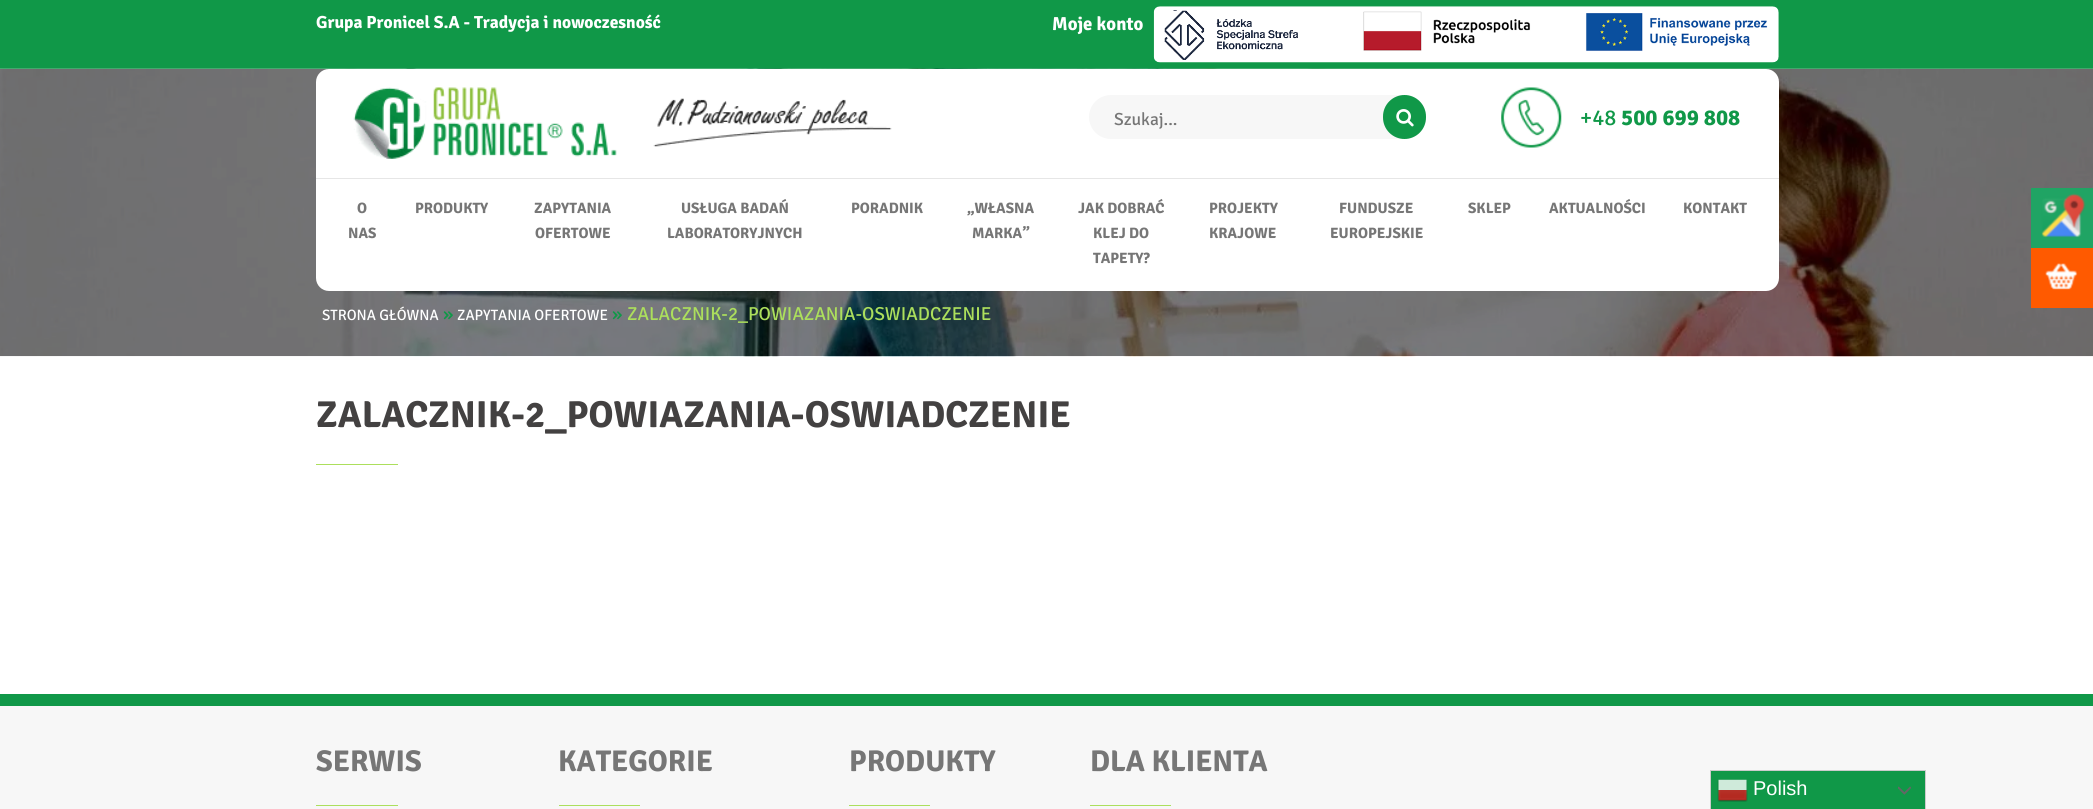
import math
import cairo

surface = cairo.ImageSurface(cairo.FORMAT_RGB24, 2093, 809)
ctx = cairo.Context(surface)
options = cairo.FontOptions()
options.set_hint_metrics(cairo.HINT_METRICS_OFF)
options.set_hint_style(cairo.HINT_STYLE_NONE)
ctx.set_font_options(options)
ctx.set_miter_limit(4)


def round_rect(x, y, w, h, r):
    ctx.new_sub_path()
    for i, (u, v) in enumerate([(x + w - r, y + h - r), (x + r, y + h - r), (x + r, y + r), (x + w - r, y + r)]):
        ctx.arc(u, v, r, i * math.pi / 2, (i + 1) * math.pi / 2)
    ctx.close_path()


def picture(path, x, y, w, h):
    ctx.save()
    ctx.set_source_surface(cairo.ImageSurface.create_from_png(path), x, y)
    ctx.rectangle(x, y, w, h)
    ctx.fill()
    ctx.restore()


ctx.set_source_rgb(1, 1, 1)
ctx.paint()
ctx.set_source_rgb(0.063, 0.596, 0.282)
ctx.rectangle(0, 0, 2093, 69)
ctx.fill()
ctx.select_font_face("Signika", cairo.FONT_SLANT_NORMAL, cairo.FONT_WEIGHT_BOLD)
ctx.set_font_size(17.5)
ctx.set_source_rgb(1, 1, 1)
ctx.move_to(316, 28)
ctx.show_text("Grupa Pronicel S.A - Tradycja i nowoczesność")
ctx.set_font_size(18.75)
ctx.move_to(1052, 30)
ctx.show_text("Moje konto")
picture("img1.png", 1153, 6, 626, 57)
picture("img8.png", 0, 68, 2093, 289)
round_rect(316, 69, 1463, 222, 13)
ctx.fill()
picture("img2.png", 353, 87, 264, 72)
picture("img3.png", 653, 98, 239, 49)
ctx.set_source_rgb(0.965, 0.965, 0.965)
round_rect(1089, 95, 337, 44, 22)
ctx.fill()
ctx.select_font_face("Signika")
ctx.set_font_size(17.5)
ctx.set_source_rgb(0.463, 0.463, 0.463)
ctx.move_to(1114, 125)
ctx.show_text("Szukaj...")
ctx.set_source_rgb(0.063, 0.596, 0.282)
round_rect(1383, 95, 43, 44, 21.5)
ctx.fill()
picture("img4.png", 1396, 109, 18, 18)
picture("img5.png", 1501, 87, 61, 61)
ctx.set_font_size(22.5)
ctx.move_to(1580, 125)
ctx.show_text("+48")
ctx.select_font_face("Signika", cairo.FONT_SLANT_NORMAL, cairo.FONT_WEIGHT_BOLD)
ctx.move_to(1621, 125)
ctx.show_text("500 699 808")
ctx.set_source_rgb(0.902, 0.902, 0.902)
ctx.rectangle(316, 178, 1463, 1)
ctx.fill()
ctx.set_font_size(15)
ctx.set_source_rgb(0.463, 0.463, 0.463)
ctx.move_to(357, 213)
ctx.show_text("O")
ctx.move_to(348, 238)
ctx.show_text("NAS")
ctx.move_to(415, 213)
ctx.show_text("PRODUKTY")
ctx.move_to(534, 213)
ctx.show_text("ZAPYTANIA")
ctx.move_to(535, 238)
ctx.show_text("OFERTOWE")
ctx.move_to(681, 213)
ctx.show_text("USŁUGA BADAŃ")
ctx.move_to(667, 238)
ctx.show_text("LABORATORYJNYCH")
ctx.move_to(851, 213)
ctx.show_text("PORADNIK")
ctx.move_to(967, 213)
ctx.show_text("„WŁASNA")
ctx.move_to(972, 238)
ctx.show_text("MARKA”")
ctx.move_to(1078, 213)
ctx.show_text("JAK DOBRAĆ")
ctx.move_to(1093, 238)
ctx.show_text("KLEJ DO")
ctx.move_to(1093, 263)
ctx.show_text("TAPETY?")
ctx.move_to(1209, 213)
ctx.show_text("PROJEKTY")
ctx.move_to(1209, 238)
ctx.show_text("KRAJOWE")
ctx.move_to(1339, 213)
ctx.show_text("FUNDUSZE")
ctx.move_to(1330, 238)
ctx.show_text("EUROPEJSKIE")
ctx.move_to(1468, 213)
ctx.show_text("SKLEP")
ctx.move_to(1549, 213)
ctx.show_text("AKTUALNOŚCI")
ctx.move_to(1683, 213)
ctx.show_text("KONTAKT")
ctx.set_source_rgb(0.125, 0.643, 0.392)
ctx.rectangle(2031, 188, 62, 60)
ctx.fill()
picture("img6.png", 2041, 193, 45, 45)
ctx.set_source_rgb(1, 0.353, 0)
ctx.rectangle(2031, 248, 62, 60)
ctx.fill()
picture("img7.png", 2045, 263, 33, 27)
ctx.select_font_face("Signika")
ctx.set_source_rgb(1, 1, 1)
ctx.move_to(322, 320)
ctx.show_text("STRONA GŁÓWNA")
ctx.set_font_size(18.75)
ctx.set_source_rgb(0.063, 0.596, 0.282)
ctx.move_to(443, 320)
ctx.show_text("»")
ctx.set_font_size(15)
ctx.set_source_rgb(1, 1, 1)
ctx.move_to(457, 320)
ctx.show_text("ZAPYTANIA OFERTOWE")
ctx.set_font_size(18.75)
ctx.set_source_rgb(0.063, 0.596, 0.282)
ctx.move_to(612, 320)
ctx.show_text("»")
ctx.set_source_rgb(0.675, 0.875, 0.361)
ctx.move_to(627, 320)
ctx.show_text("ZALACZNIK-2_POWIAZANIA-OSWIADCZENIE")
ctx.select_font_face("Signika", cairo.FONT_SLANT_NORMAL, cairo.FONT_WEIGHT_BOLD)
ctx.set_font_size(37.5)
ctx.set_source_rgb(0.263, 0.255, 0.255)
ctx.move_to(316, 427)
ctx.show_text("ZALACZNIK-2_POWIAZANIA-OSWIADCZENIE")
ctx.set_source_rgb(0.675, 0.875, 0.361)
ctx.rectangle(316, 464, 82, 1)
ctx.fill()
ctx.set_source_rgb(0.965, 0.965, 0.965)
ctx.rectangle(0, 706, 2093, 103)
ctx.fill()
ctx.set_source_rgb(0.063, 0.596, 0.282)
ctx.rectangle(0, 694, 2093, 12)
ctx.fill()
ctx.set_font_size(30)
ctx.set_source_rgb(0.463, 0.463, 0.463)
ctx.move_to(316, 771)
ctx.show_text("SERWIS")
ctx.set_source_rgb(0.675, 0.875, 0.361)
ctx.rectangle(316, 805, 82, 1)
ctx.fill()
ctx.set_source_rgb(0.463, 0.463, 0.463)
ctx.move_to(558, 771)
ctx.show_text("KATEGORIE")
ctx.set_source_rgb(0.675, 0.875, 0.361)
ctx.rectangle(559, 805, 81, 1)
ctx.fill()
ctx.set_source_rgb(0.463, 0.463, 0.463)
ctx.move_to(849, 771)
ctx.show_text("PRODUKTY")
ctx.set_source_rgb(0.675, 0.875, 0.361)
ctx.rectangle(849, 805, 81, 1)
ctx.fill()
ctx.set_source_rgb(0.463, 0.463, 0.463)
ctx.move_to(1090, 771)
ctx.show_text("DLA KLIENTA")
ctx.set_source_rgb(0.675, 0.875, 0.361)
ctx.rectangle(1090, 805, 81, 1)
ctx.fill()
ctx.set_source_rgb(0.063, 0.596, 0.282)
ctx.rectangle(1710.5, 770.5, 215, 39)
ctx.fill_preserve()
ctx.set_source_rgb(0.8, 0.8, 0.8)
ctx.set_line_width(1)
ctx.stroke()
picture("img9.png", 1717, 779, 31, 23)
ctx.select_font_face("Liberation Sans")
ctx.set_font_size(20)
ctx.set_source_rgb(1, 1, 1)
ctx.move_to(1753, 795)
ctx.show_text("Polish")
picture("img10.png", 1898, 786, 13, 9)
surface.write_to_png("page.png")
